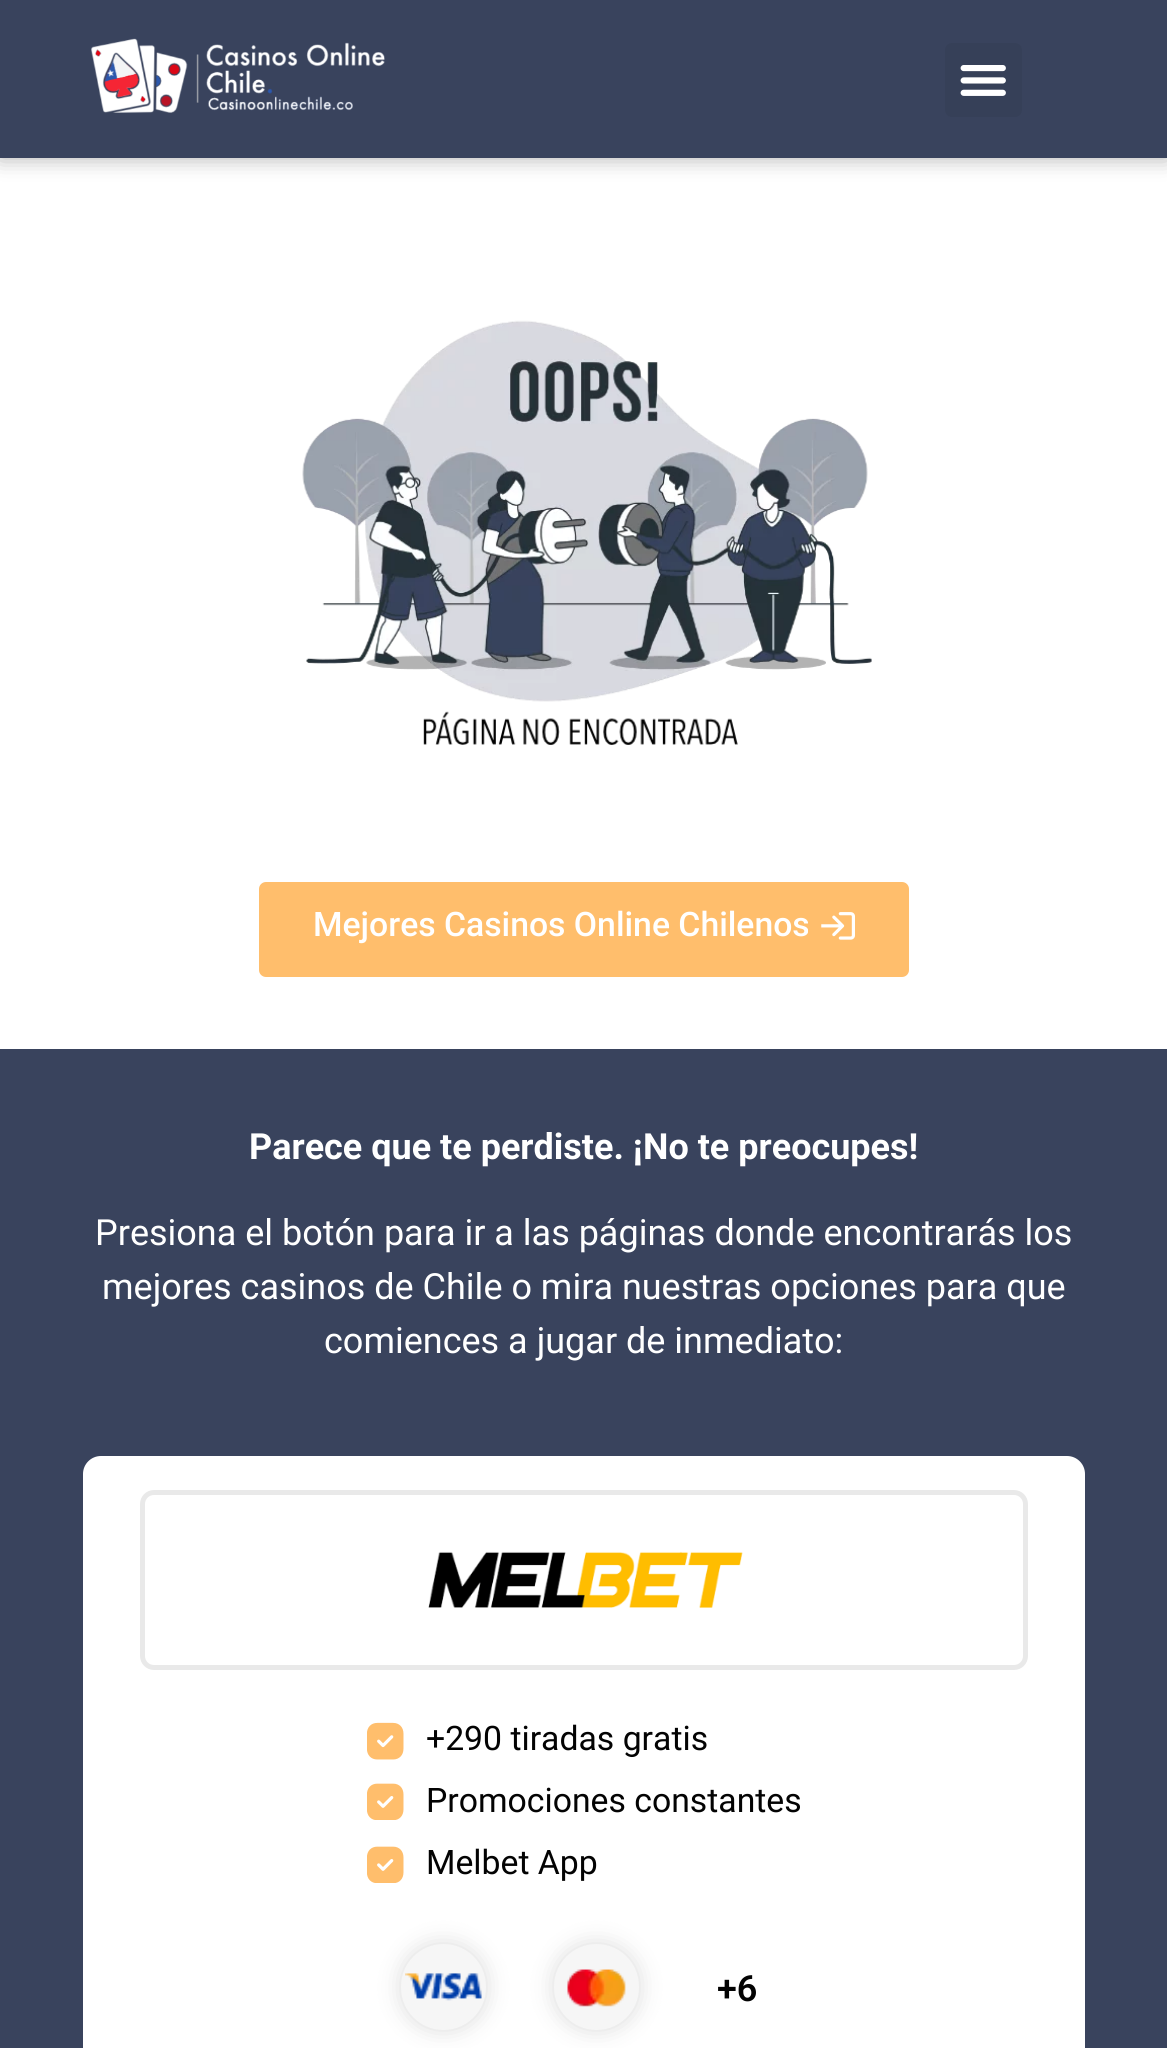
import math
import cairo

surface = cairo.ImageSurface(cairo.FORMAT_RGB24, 1167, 2048)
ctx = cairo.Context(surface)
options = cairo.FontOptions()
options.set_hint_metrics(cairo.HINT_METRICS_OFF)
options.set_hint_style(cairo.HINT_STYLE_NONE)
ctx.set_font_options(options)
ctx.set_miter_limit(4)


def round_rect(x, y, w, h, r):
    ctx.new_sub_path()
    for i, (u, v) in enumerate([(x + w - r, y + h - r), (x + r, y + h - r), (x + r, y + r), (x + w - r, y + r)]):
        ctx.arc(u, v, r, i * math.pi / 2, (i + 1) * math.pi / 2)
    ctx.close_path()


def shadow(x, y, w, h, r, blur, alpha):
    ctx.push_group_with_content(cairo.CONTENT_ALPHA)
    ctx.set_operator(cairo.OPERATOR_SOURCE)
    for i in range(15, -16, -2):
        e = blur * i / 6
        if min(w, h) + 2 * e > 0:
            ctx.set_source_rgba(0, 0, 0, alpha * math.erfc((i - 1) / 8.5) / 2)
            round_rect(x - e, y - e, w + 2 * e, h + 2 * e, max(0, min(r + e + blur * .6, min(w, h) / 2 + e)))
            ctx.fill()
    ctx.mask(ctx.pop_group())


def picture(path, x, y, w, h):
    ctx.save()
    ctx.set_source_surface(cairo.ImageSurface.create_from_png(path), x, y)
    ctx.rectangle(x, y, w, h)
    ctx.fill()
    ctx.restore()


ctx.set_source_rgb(1, 1, 1)
ctx.paint()
ctx.set_source_rgb(0, 0, 0)
shadow(0, 0, 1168, 158, 0, 11, 0.32)
ctx.set_source_rgb(0.224, 0.263, 0.365)
ctx.rectangle(0, 0, 1167, 158)
ctx.fill()
picture("img1.png", 91, 38, 294, 75)
ctx.set_source_rgb(0.212, 0.251, 0.345)
round_rect(945, 43, 77, 74, 7)
ctx.fill()
picture("img2.png", 960, 65, 46, 31)
picture("img3.png", 302, 320, 570, 425)
ctx.set_source_rgb(1, 0.745, 0.424)
round_rect(259, 882, 650, 95, 7)
ctx.fill()
ctx.select_font_face("Roboto Medium")
ctx.set_font_size(33.75)
ctx.set_source_rgb(1, 1, 1)
ctx.move_to(313, 936)
ctx.show_text("Mejores Casinos Online Chilenos")
picture("img4.png", 821, 912, 34, 28)
ctx.set_source_rgb(0.224, 0.263, 0.365)
ctx.rectangle(0, 1049, 1167, 999)
ctx.fill()
ctx.select_font_face("Roboto", cairo.FONT_SLANT_NORMAL, cairo.FONT_WEIGHT_BOLD)
ctx.set_font_size(36)
ctx.set_source_rgb(1, 1, 1)
ctx.move_to(249, 1159)
ctx.show_text("Parece que te perdiste. ¡No te preocupes!")
ctx.select_font_face("Roboto")
ctx.move_to(95, 1245)
ctx.show_text("Presiona el botón para ir a las páginas donde encontrarás los")
ctx.move_to(102, 1299)
ctx.show_text("mejores casinos de Chile o mira nuestras opciones para que")
ctx.move_to(324, 1353)
ctx.show_text("comiences a jugar de inmediato:")
round_rect(83, 1456, 1002, 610, 18)
ctx.fill()
round_rect(142.5, 1492.5, 883, 175, 11.5)
ctx.set_source_rgb(0.914, 0.914, 0.914)
ctx.set_line_width(5)
ctx.stroke()
picture("img5.png", 428, 1551, 315, 57)
picture("img6.png", 367, 1722, 37, 38)
ctx.set_font_size(33.75)
ctx.set_source_rgb(0.012, 0.012, 0.012)
ctx.move_to(426, 1750)
ctx.show_text("+290 tiradas gratis")
picture("img7.png", 367, 1783, 37, 37)
ctx.move_to(426, 1812)
ctx.show_text("Promociones constantes")
picture("img7.png", 367, 1846, 37, 37)
ctx.move_to(426, 1874)
ctx.show_text("Melbet App")
ctx.set_source_rgb(0.714, 0.714, 0.714)
shadow(401, 1944, 85, 86, 42.5, 11, 0.5)
ctx.set_source_rgb(0.961, 0.961, 0.961)
round_rect(401, 1944, 85, 86, 42.5)
ctx.fill()
picture("img8.png", 405, 1973, 77, 28)
ctx.set_source_rgb(0.714, 0.714, 0.714)
shadow(554, 1944, 85, 86, 42.5, 11, 0.5)
ctx.set_source_rgb(0.961, 0.961, 0.961)
round_rect(554, 1944, 85, 86, 42.5)
ctx.fill()
picture("img9.png", 567, 1969, 59, 38)
ctx.select_font_face("Roboto SemiBold")
ctx.set_font_size(36)
ctx.set_source_rgb(0.012, 0.012, 0.012)
ctx.move_to(717, 2001)
ctx.show_text("+6")
surface.write_to_png("page.png")
